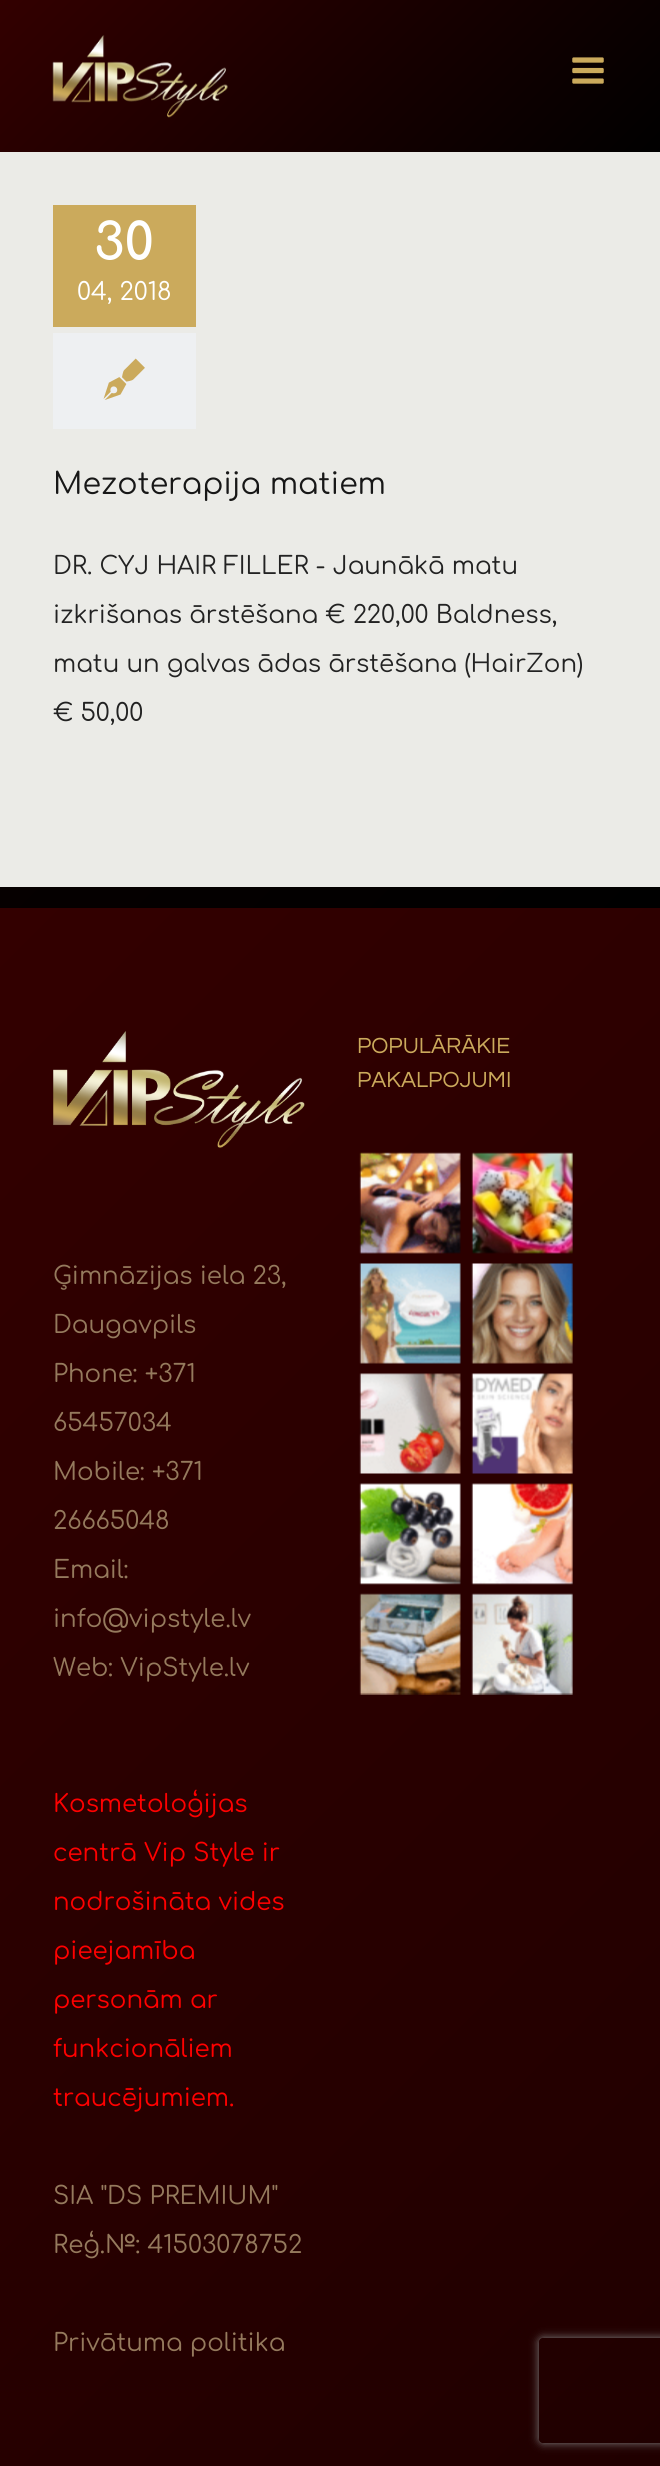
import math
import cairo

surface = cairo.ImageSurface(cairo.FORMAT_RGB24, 660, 2466)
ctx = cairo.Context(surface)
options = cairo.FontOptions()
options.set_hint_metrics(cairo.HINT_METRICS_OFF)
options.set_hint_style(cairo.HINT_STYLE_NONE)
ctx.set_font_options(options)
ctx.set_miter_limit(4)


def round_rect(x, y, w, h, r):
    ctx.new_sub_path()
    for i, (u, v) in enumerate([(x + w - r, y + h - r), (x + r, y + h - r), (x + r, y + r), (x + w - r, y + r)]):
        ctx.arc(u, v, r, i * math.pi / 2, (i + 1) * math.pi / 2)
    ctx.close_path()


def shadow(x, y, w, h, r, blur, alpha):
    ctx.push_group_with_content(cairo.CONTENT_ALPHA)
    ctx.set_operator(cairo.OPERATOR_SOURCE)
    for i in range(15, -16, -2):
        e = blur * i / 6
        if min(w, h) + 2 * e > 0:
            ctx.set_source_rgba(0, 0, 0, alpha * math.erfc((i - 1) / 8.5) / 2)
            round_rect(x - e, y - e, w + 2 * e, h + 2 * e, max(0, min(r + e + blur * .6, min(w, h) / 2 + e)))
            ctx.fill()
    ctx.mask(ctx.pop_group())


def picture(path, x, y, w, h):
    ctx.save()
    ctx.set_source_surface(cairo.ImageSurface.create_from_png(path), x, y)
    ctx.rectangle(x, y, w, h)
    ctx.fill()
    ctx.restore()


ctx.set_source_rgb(0.918, 0.918, 0.906)
ctx.paint()
gradient = cairo.LinearGradient(127, -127, 534, 280)
gradient.add_color_stop_rgba(0, 0.2, 0, 0, 1)
gradient.add_color_stop_rgba(1, 0, 0, 0, 1)
ctx.set_source(gradient)
ctx.rectangle(0, 0, 660, 152)
ctx.fill()
picture("img1.png", 52, 35, 176, 83)
picture("img2.png", 572, 57, 32, 27)
ctx.set_source_rgb(0.796, 0.667, 0.361)
ctx.rectangle(53, 205, 143, 122)
ctx.fill()
ctx.select_font_face("Comfortaa", cairo.FONT_SLANT_NORMAL, cairo.FONT_WEIGHT_BOLD)
ctx.set_font_size(51)
ctx.set_source_rgb(1, 1, 1)
ctx.move_to(94, 260)
ctx.show_text("30")
ctx.select_font_face("Comfortaa")
ctx.set_font_size(24.5)
ctx.move_to(77, 300)
ctx.show_text("04, 2018")
ctx.set_source_rgb(0.933, 0.941, 0.949)
ctx.rectangle(53, 333, 143, 96)
ctx.fill()
picture("img3.png", 103, 358, 42, 42)
ctx.set_font_size(30)
ctx.set_source_rgb(0.09, 0.09, 0.09)
ctx.move_to(53, 494)
ctx.show_text("Mezoterapija matiem")
ctx.set_font_size(24.5)
ctx.set_source_rgb(0.133, 0.133, 0.133)
ctx.move_to(53, 574)
ctx.show_text("DR. CYJ HAIR FILLER - Jaunākā matu")
ctx.move_to(53, 623)
ctx.show_text("izkrišanas ārstēšana € 220,00 Baldness,")
ctx.move_to(53, 672)
ctx.show_text("matu un galvas ādas ārstēšana (HairZon)")
ctx.move_to(53, 721)
ctx.show_text("€ 50,00")
gradient = cairo.LinearGradient(-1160, -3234, 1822, -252)
gradient.add_color_stop_rgba(0, 0.2, 0, 0, 1)
gradient.add_color_stop_rgba(1, 0, 0, 0, 1)
ctx.set_source(gradient)
ctx.rectangle(0, 887, 660, 21)
ctx.fill()
gradient = cairo.LinearGradient(-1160, 2069, 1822, 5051)
gradient.add_color_stop_rgba(0, 0.2, 0, 0, 1)
gradient.add_color_stop_rgba(1, 0, 0, 0, 1)
ctx.set_source(gradient)
ctx.rectangle(0, 908, 660, 1558)
ctx.fill()
ctx.select_font_face("Questrial")
ctx.set_font_size(22.75)
ctx.set_source_rgb(0.796, 0.667, 0.361)
ctx.move_to(357, 1053)
ctx.show_text("POPULĀRĀKIE")
ctx.move_to(357, 1087)
ctx.show_text("PAKALPOJUMI")
picture("img4.png", 359, 1152, 102, 102)
picture("img5.png", 471, 1152, 102, 102)
picture("img6.png", 359, 1263, 102, 101)
picture("img7.png", 471, 1263, 102, 101)
picture("img8.png", 359, 1373, 102, 101)
picture("img9.png", 471, 1373, 102, 101)
picture("img10.png", 359, 1483, 102, 102)
picture("img11.png", 471, 1483, 102, 102)
picture("img12.png", 359, 1593, 102, 102)
picture("img13.png", 471, 1593, 102, 102)
picture("img14.png", 53, 1031, 252, 117)
ctx.select_font_face("Comfortaa")
ctx.set_font_size(24.5)
ctx.set_source_rgb(0.584, 0.478, 0.365)
ctx.move_to(53, 1284)
ctx.show_text("Ģimnāzijas iela 23,")
ctx.move_to(53, 1333)
ctx.show_text("Daugavpils")
ctx.move_to(53, 1382)
ctx.show_text("Phone: +371")
ctx.move_to(53, 1431)
ctx.show_text("65457034")
ctx.move_to(53, 1480)
ctx.show_text("Mobile: +371")
ctx.move_to(53, 1529)
ctx.show_text("26665048")
ctx.move_to(53, 1578)
ctx.show_text("Email:")
ctx.move_to(53, 1627)
ctx.show_text("info@vipstyle.lv")
ctx.move_to(53, 1676)
ctx.show_text("Web: VipStyle.lv")
ctx.set_source_rgb(1, 0, 0)
ctx.move_to(53, 1812)
ctx.show_text("Kosmetoloģijas")
ctx.move_to(53, 1861)
ctx.show_text("centrā Vip Style ir")
ctx.move_to(53, 1910)
ctx.show_text("nodrošināta vides")
ctx.move_to(53, 1959)
ctx.show_text("pieejamība")
ctx.move_to(53, 2008)
ctx.show_text("personām ar")
ctx.move_to(53, 2057)
ctx.show_text("funkcionāliem")
ctx.move_to(53, 2106)
ctx.show_text("traucējumiem.")
ctx.set_source_rgb(0.584, 0.478, 0.365)
ctx.move_to(53, 2204)
ctx.show_text("SIA \"DS PREMIUM\"")
ctx.move_to(53, 2253)
ctx.show_text("Reģ.№: 41503078752")
ctx.move_to(53, 2351)
ctx.show_text("Privātuma politika")
ctx.save()
ctx.set_fill_rule(cairo.FILL_RULE_EVEN_ODD)
ctx.new_path()
ctx.move_to(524, 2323)
ctx.line_to(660, 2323)
ctx.line_to(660, 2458)
ctx.line_to(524, 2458)
ctx.close_path()
ctx.move_to(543, 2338)
ctx.line_to(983, 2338)
ctx.curve_to(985, 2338, 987, 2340, 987, 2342)
ctx.line_to(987, 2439)
ctx.curve_to(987, 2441, 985, 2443, 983, 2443)
ctx.line_to(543, 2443)
ctx.curve_to(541, 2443, 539, 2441, 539, 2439)
ctx.line_to(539, 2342)
ctx.curve_to(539, 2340, 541, 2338, 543, 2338)
ctx.close_path()
ctx.clip()
ctx.set_source_rgb(0.502, 0.502, 0.502)
shadow(539, 2338, 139, 105, 4, 4.5, 1)
ctx.restore()
surface.write_to_png("page.png")
